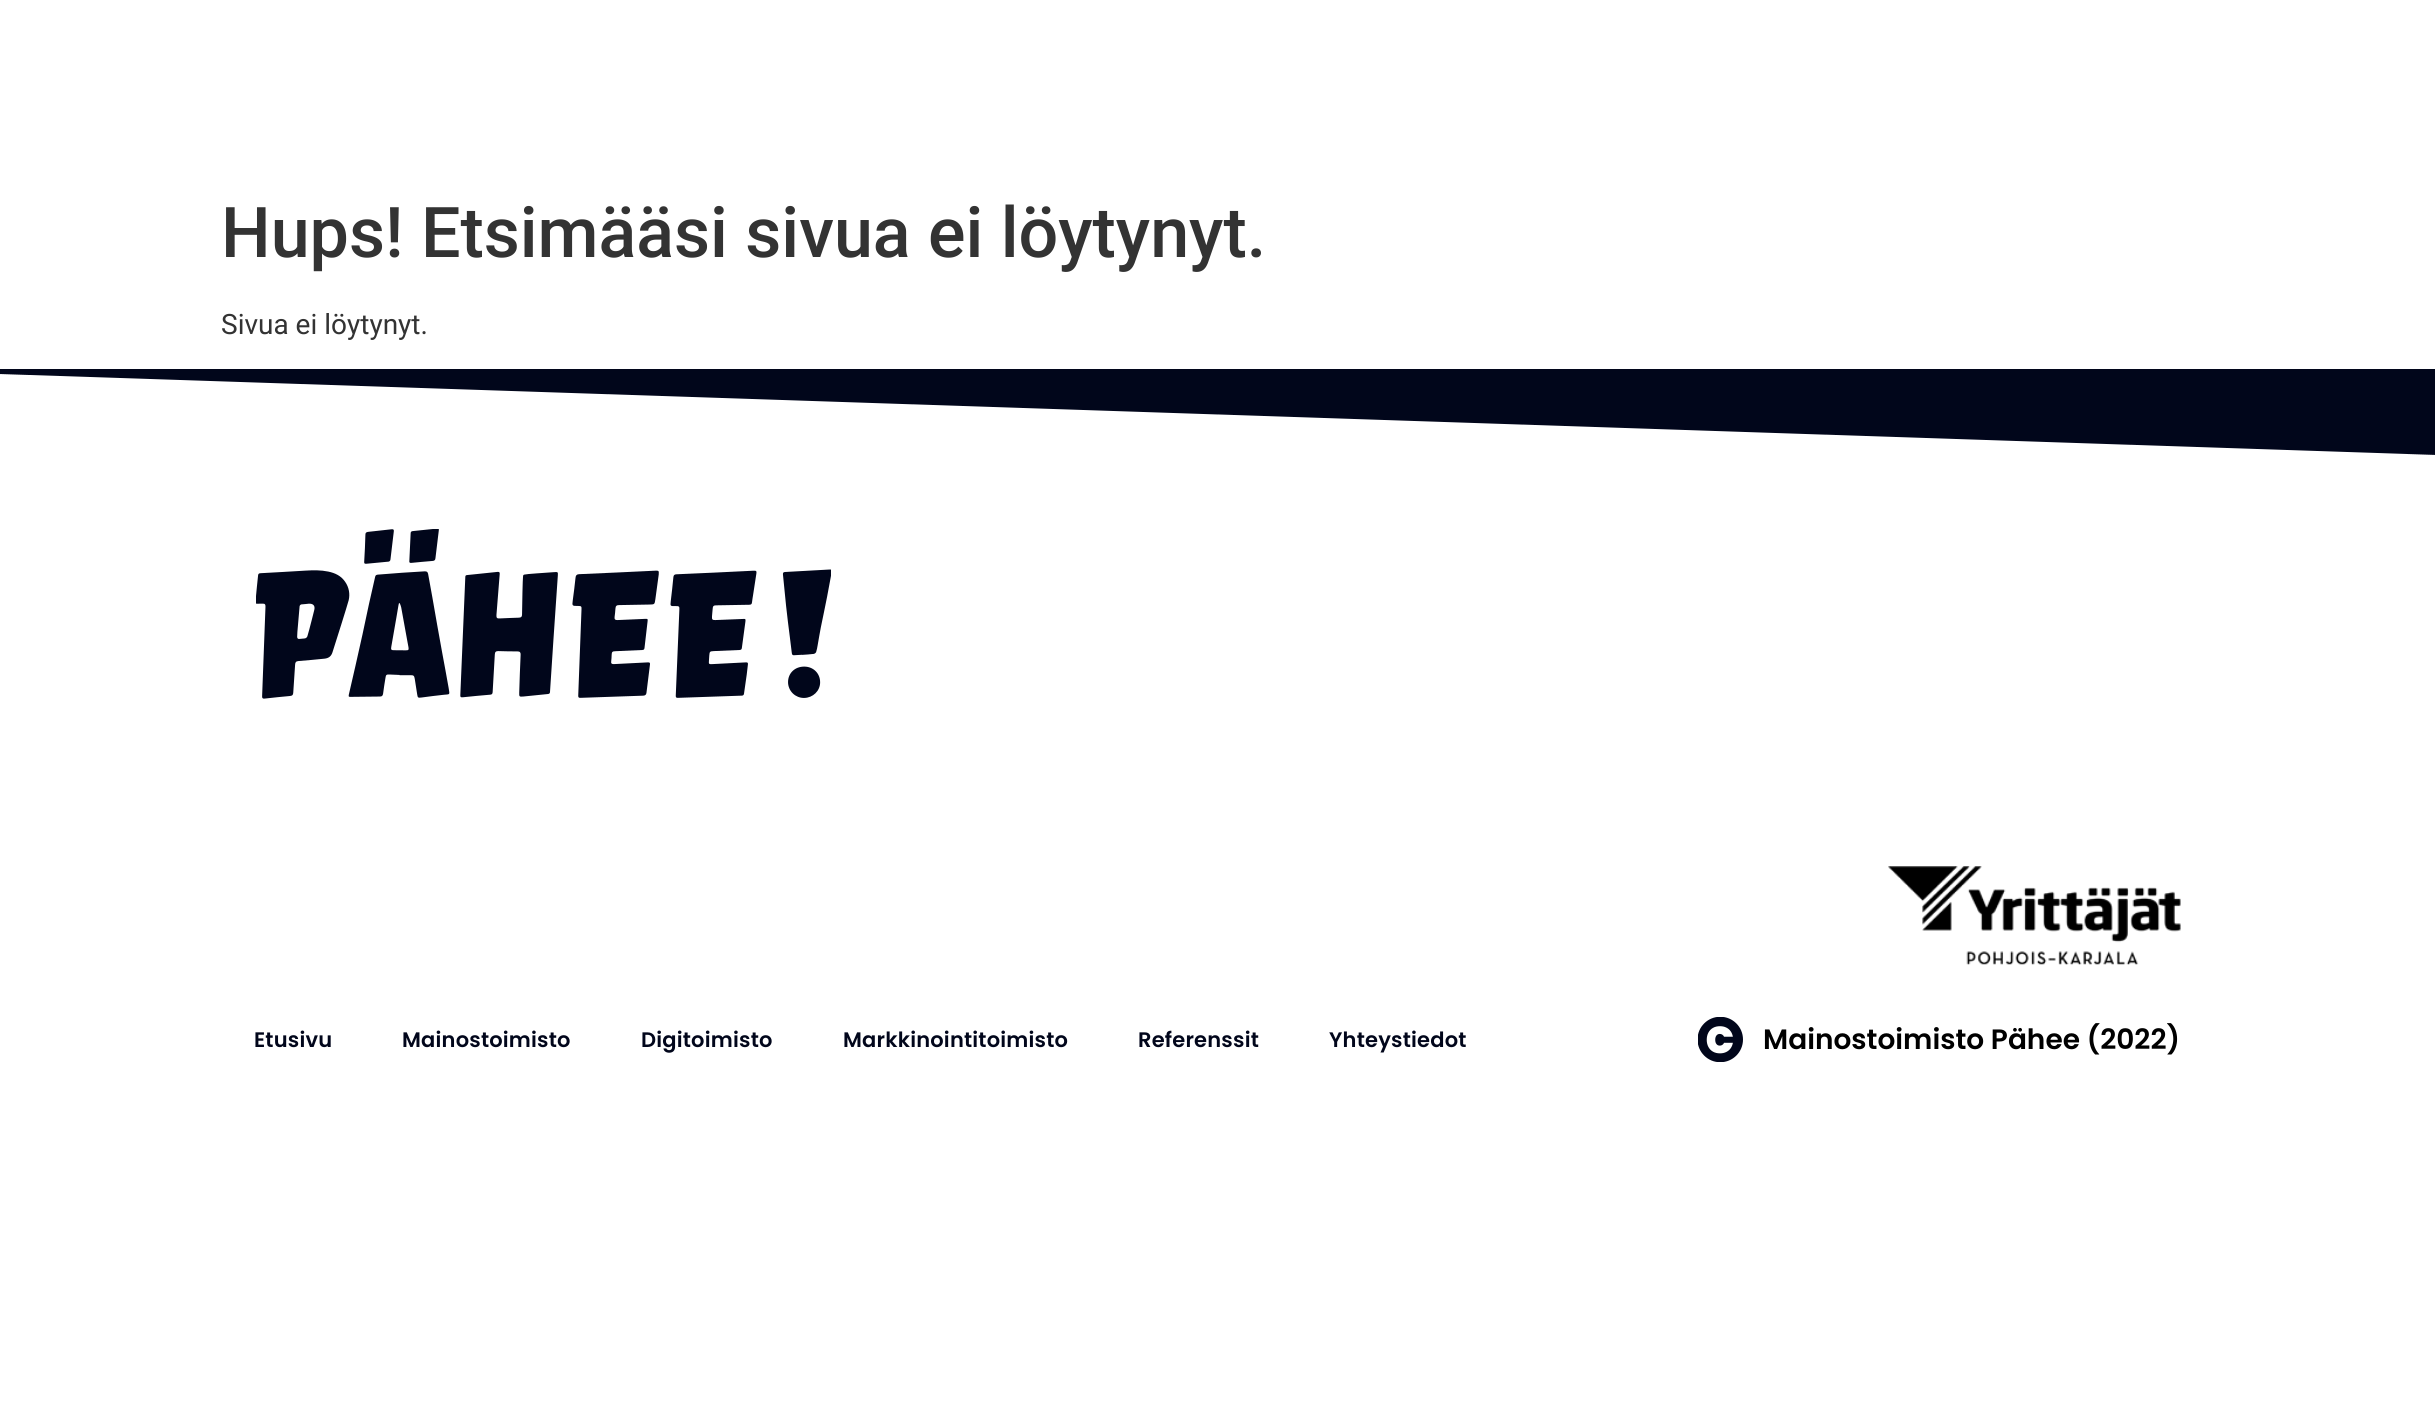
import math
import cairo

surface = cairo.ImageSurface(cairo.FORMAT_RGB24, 2435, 1402)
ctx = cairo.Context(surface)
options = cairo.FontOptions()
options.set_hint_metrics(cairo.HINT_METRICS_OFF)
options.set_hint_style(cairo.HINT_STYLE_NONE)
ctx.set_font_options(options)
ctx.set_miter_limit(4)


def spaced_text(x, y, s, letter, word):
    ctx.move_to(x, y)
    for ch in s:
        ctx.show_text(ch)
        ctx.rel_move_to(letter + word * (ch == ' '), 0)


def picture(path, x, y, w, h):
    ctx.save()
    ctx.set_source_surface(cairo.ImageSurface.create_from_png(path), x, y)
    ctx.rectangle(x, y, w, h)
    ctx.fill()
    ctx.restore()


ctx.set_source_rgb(1, 1, 1)
ctx.paint()
ctx.select_font_face("Roboto Medium")
ctx.set_font_size(70)
ctx.set_source_rgb(0.2, 0.2, 0.2)
ctx.move_to(221, 257)
ctx.show_text("Hups! Etsimääsi sivua ei löytynyt.")
ctx.select_font_face("Roboto")
ctx.set_font_size(28)
ctx.move_to(221, 334)
ctx.show_text("Sivua ei löytynyt.")
ctx.set_source_rgb(0.004, 0.024, 0.106)
ctx.new_path()
ctx.move_to(-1, 374)
ctx.line_to(-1, 369)
ctx.line_to(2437, 369)
ctx.line_to(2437, 455)
ctx.close_path()
ctx.fill()
picture("img1.png", 256, 529, 575, 170)
picture("img2.png", 1888, 866, 293, 99)
ctx.select_font_face("Poppins SemiBold")
ctx.set_font_size(21)
spaced_text(254, 1047, "Etusivu", 0.2, 0)
spaced_text(402, 1047, "Mainostoimisto", 0.2, 0)
spaced_text(641, 1047, "Digitoimisto", 0.2, 0)
spaced_text(843, 1047, "Markkinointitoimisto", 0.2, 0)
spaced_text(1138, 1047, "Referenssit", 0.2, 0)
spaced_text(1329, 1047, "Yhteystiedot", 0.2, 0)
picture("img3.png", 1698, 1017, 45, 45)
ctx.set_font_size(28)
ctx.set_source_rgb(0, 0, 0)
ctx.move_to(1763, 1049)
ctx.show_text("Mainostoimisto Pähee (2022)")
surface.write_to_png("page.png")
